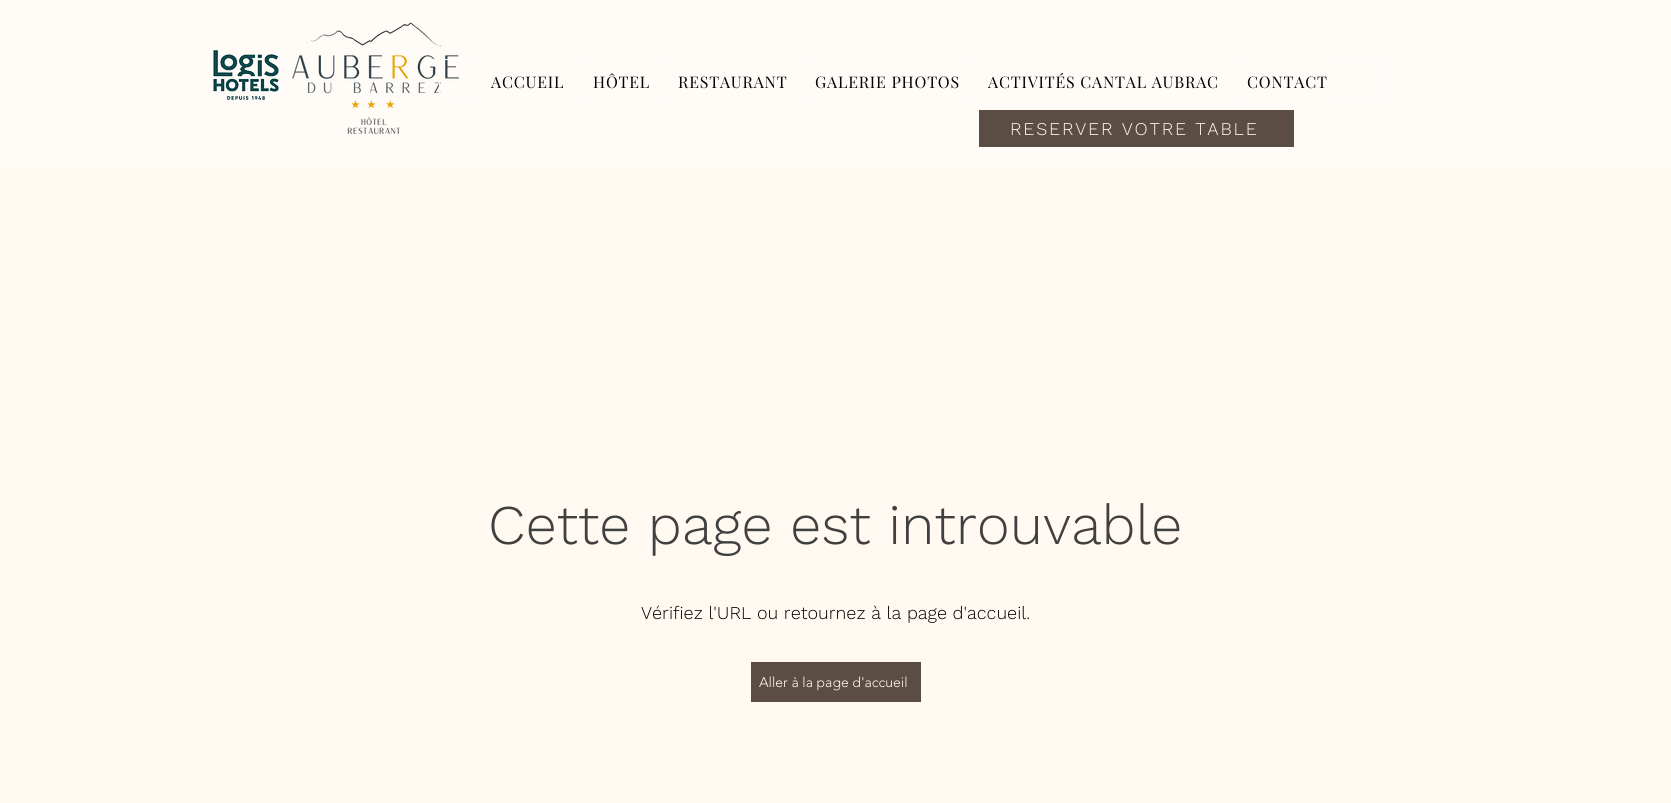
import math
import cairo

surface = cairo.ImageSurface(cairo.FORMAT_RGB24, 1671, 803)
ctx = cairo.Context(surface)
options = cairo.FontOptions()
options.set_hint_metrics(cairo.HINT_METRICS_OFF)
options.set_hint_style(cairo.HINT_STYLE_NONE)
ctx.set_font_options(options)
ctx.set_miter_limit(4)


def spaced_text(x, y, s, letter, word):
    ctx.move_to(x, y)
    for ch in s:
        ctx.show_text(ch)
        ctx.rel_move_to(letter + word * (ch == ' '), 0)


def picture(path, x, y, w, h):
    ctx.save()
    ctx.set_source_surface(cairo.ImageSurface.create_from_png(path), x, y)
    ctx.rectangle(x, y, w, h)
    ctx.fill()
    ctx.restore()


ctx.set_source_rgb(1, 0.973, 0.945)
ctx.paint()
ctx.set_source_rgb(1, 0.984, 0.965)
ctx.rectangle(0, 0, 1671, 168)
ctx.fill()
picture("img1.png", 213, 50, 66, 50)
picture("img2.png", 292, 22, 167, 113)
ctx.rectangle(439.5, 59.5, 941, 44)
ctx.set_source_rgb(1, 1, 1)
ctx.set_line_width(1)
ctx.stroke()
ctx.set_source_rgb(1, 0.973, 0.945)
ctx.rectangle(481, 60, 94, 1)
ctx.fill()
ctx.rectangle(481, 102, 94, 1)
ctx.fill()
ctx.select_font_face("Playfair Display")
ctx.set_font_size(16)
ctx.set_source_rgb(0, 0, 0)
spaced_text(491, 88, "ACCUEIL", 0.8, 0)
ctx.set_source_rgb(1, 0.973, 0.945)
ctx.rectangle(583, 60, 77, 1)
ctx.fill()
ctx.rectangle(583, 102, 77, 1)
ctx.fill()
ctx.set_source_rgb(0, 0, 0)
spaced_text(593, 88, "HÔTEL", 0.8, 0)
ctx.set_source_rgb(1, 0.973, 0.945)
ctx.rectangle(668, 60, 129, 1)
ctx.fill()
ctx.rectangle(668, 102, 129, 1)
ctx.fill()
ctx.set_source_rgb(0, 0, 0)
spaced_text(678, 88, "RESTAURANT", 0.8, 0)
ctx.set_source_rgb(1, 0.973, 0.945)
ctx.rectangle(805, 60, 165, 1)
ctx.fill()
ctx.rectangle(805, 102, 165, 1)
ctx.fill()
ctx.set_source_rgb(0, 0, 0)
spaced_text(815, 88, "GALERIE PHOTOS", 0.8, 0)
ctx.set_source_rgb(1, 0.973, 0.945)
ctx.rectangle(978, 60, 251, 1)
ctx.fill()
ctx.rectangle(978, 102, 251, 1)
ctx.fill()
ctx.set_source_rgb(0, 0, 0)
spaced_text(988, 88, "ACTIVITÉS CANTAL AUBRAC", 0.8, 0)
ctx.set_source_rgb(1, 0.973, 0.945)
ctx.rectangle(1237, 60, 101, 1)
ctx.fill()
ctx.rectangle(1237, 102, 101, 1)
ctx.fill()
ctx.set_source_rgb(0, 0, 0)
spaced_text(1247, 88, "CONTACT", 0.8, 0)
ctx.set_source_rgb(0.357, 0.302, 0.263)
ctx.rectangle(979, 110, 315, 37)
ctx.fill()
ctx.select_font_face("Work Sans Light")
ctx.set_font_size(18)
ctx.set_source_rgb(1, 0.973, 0.945)
spaced_text(1010, 135, "RESERVER VOTRE TABLE", 1.8, 0)
ctx.set_font_size(56)
ctx.set_source_rgb(0.251, 0.251, 0.251)
ctx.move_to(488, 544)
ctx.show_text("Cette page est introuvable")
ctx.set_font_size(18)
ctx.set_source_rgb(0, 0, 0)
ctx.move_to(641, 619)
ctx.show_text("Vérifiez l'URL ou retournez à la page d'accueil.")
ctx.set_source_rgb(0.357, 0.302, 0.263)
ctx.rectangle(751, 662, 170, 40)
ctx.fill()
ctx.select_font_face("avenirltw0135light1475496 Light")
ctx.set_font_size(14)
ctx.set_source_rgb(1, 0.973, 0.945)
ctx.move_to(759, 687)
ctx.show_text("Aller à la page d'accueil")
surface.write_to_png("page.png")
